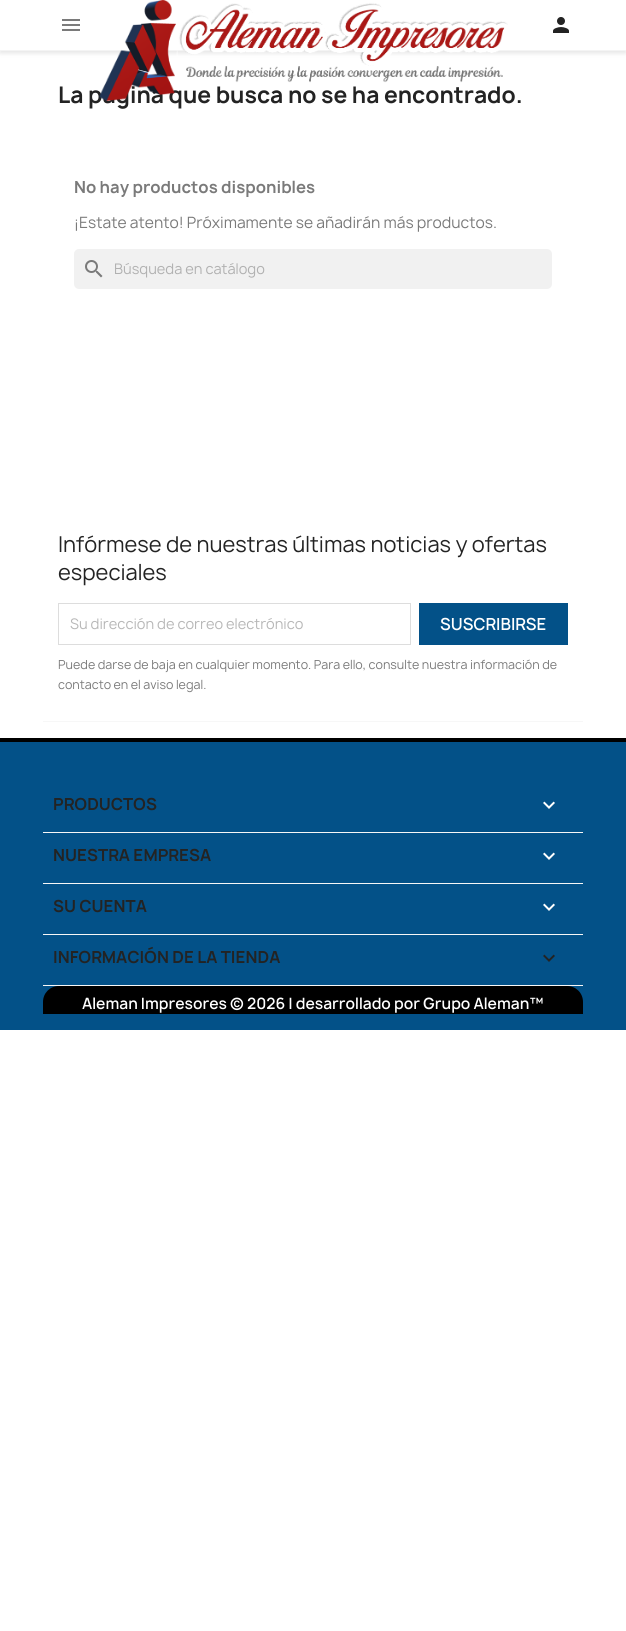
import math
import cairo

surface = cairo.ImageSurface(cairo.FORMAT_RGB24, 626, 1631)
ctx = cairo.Context(surface)
options = cairo.FontOptions()
options.set_hint_metrics(cairo.HINT_METRICS_OFF)
options.set_hint_style(cairo.HINT_STYLE_NONE)
ctx.set_font_options(options)
ctx.set_miter_limit(4)


def round_rect(x, y, w, h, r):
    ctx.new_sub_path()
    for i, (u, v) in enumerate([(x + w - r, y + h - r), (x + r, y + h - r), (x + r, y + r), (x + w - r, y + r)]):
        ctx.arc(u, v, r, i * math.pi / 2, (i + 1) * math.pi / 2)
    ctx.close_path()


def shadow(x, y, w, h, r, blur, alpha):
    ctx.push_group_with_content(cairo.CONTENT_ALPHA)
    ctx.set_operator(cairo.OPERATOR_SOURCE)
    for i in range(15, -16, -2):
        e = blur * i / 6
        if min(w, h) + 2 * e > 0:
            ctx.set_source_rgba(0, 0, 0, alpha * math.erfc((i - 1) / 8.5) / 2)
            round_rect(x - e, y - e, w + 2 * e, h + 2 * e, max(0, min(r + e + blur * .6, min(w, h) / 2 + e)))
            ctx.fill()
    ctx.mask(ctx.pop_group())


def picture(path, x, y, w, h):
    ctx.save()
    ctx.set_source_surface(cairo.ImageSurface.create_from_png(path), x, y)
    ctx.rectangle(x, y, w, h)
    ctx.fill()
    ctx.restore()


ctx.set_source_rgb(1, 1, 1)
ctx.paint()
ctx.set_source_rgb(0, 0, 0)
shadow(0, 2, 626, 51, 0, 2.5, 0.11)
ctx.set_source_rgb(1, 1, 1)
ctx.rectangle(0, 0, 626, 50)
ctx.fill()
picture("img1.png", 62, 19, 18, 12)
ctx.set_source_rgb(0.957, 0.957, 0.957)
ctx.rectangle(0, 50, 626, 1)
ctx.fill()
ctx.select_font_face("Manrope", cairo.FONT_SLANT_NORMAL, cairo.FONT_WEIGHT_BOLD)
ctx.set_font_size(22)
ctx.set_source_rgb(0.137, 0.137, 0.137)
ctx.move_to(58, 103)
ctx.show_text("La página que busca no se ha encontrado.")
picture("img2.png", 99, 0, 409, 101)
picture("img3.png", 553, 17, 16, 16)
ctx.set_font_size(16)
ctx.set_source_rgb(0.478, 0.478, 0.478)
ctx.move_to(74, 193)
ctx.show_text("No hay productos disponibles")
ctx.select_font_face("Manrope")
ctx.set_font_size(15)
ctx.move_to(74, 228)
ctx.show_text("¡Estate atento! Próximamente se añadirán más productos.")
ctx.set_source_rgb(0.945, 0.945, 0.945)
round_rect(74, 249, 478, 40, 5)
ctx.fill()
picture("img4.png", 85, 260, 18, 18)
ctx.set_font_size(14)
ctx.set_source_rgb(0.694, 0.694, 0.694)
ctx.move_to(114, 274)
ctx.show_text("Búsqueda en catálogo")
ctx.set_source_rgb(0.965, 0.965, 0.965)
ctx.rectangle(43, 721, 540, 1)
ctx.fill()
ctx.set_font_size(21)
ctx.set_source_rgb(0.137, 0.137, 0.137)
ctx.move_to(58, 552)
ctx.show_text("Infórmese de nuestras últimas noticias y ofertas")
ctx.move_to(58, 580)
ctx.show_text("especiales")
ctx.rectangle(58.5, 603.5, 352, 41)
ctx.set_source_rgb(0.867, 0.867, 0.867)
ctx.set_line_width(1)
ctx.stroke()
ctx.set_font_size(14)
ctx.set_source_rgb(0.718, 0.718, 0.718)
ctx.move_to(70, 629)
ctx.show_text("Su dirección de correo electrónico")
ctx.set_source_rgb(0.012, 0.318, 0.533)
ctx.rectangle(419, 603, 149, 42)
ctx.fill()
ctx.select_font_face("Manrope SemiBold")
ctx.set_font_size(16)
ctx.set_source_rgb(1, 1, 1)
ctx.move_to(440, 630)
ctx.show_text("SUSCRIBIRSE")
ctx.select_font_face("Manrope")
ctx.set_font_size(12)
ctx.set_source_rgb(0.478, 0.478, 0.478)
ctx.move_to(58, 669)
ctx.show_text("Puede darse de baja en cualquier momento. Para ello, consulte nuestra información de")
ctx.move_to(58, 689)
ctx.show_text("contacto en el aviso legal.")
ctx.set_source_rgb(0.012, 0.318, 0.533)
ctx.rectangle(0, 742, 626, 288)
ctx.fill()
ctx.set_source_rgb(0, 0, 0)
ctx.rectangle(0, 738, 626, 4)
ctx.fill()
ctx.set_source_rgb(0.965, 0.965, 0.965)
ctx.rectangle(43, 832, 540, 1)
ctx.fill()
ctx.select_font_face("Manrope", cairo.FONT_SLANT_NORMAL, cairo.FONT_WEIGHT_BOLD)
ctx.set_font_size(16)
ctx.set_source_rgb(0.137, 0.137, 0.137)
ctx.move_to(53, 810)
ctx.show_text("PRODUCTOS")
picture("img5.png", 543, 801, 12, 8)
ctx.set_source_rgb(0.965, 0.965, 0.965)
ctx.rectangle(43, 883, 540, 1)
ctx.fill()
ctx.set_source_rgb(0.137, 0.137, 0.137)
ctx.move_to(53, 861)
ctx.show_text("NUESTRA EMPRESA")
picture("img5.png", 543, 852, 12, 8)
ctx.set_source_rgb(0.965, 0.965, 0.965)
ctx.rectangle(43, 934, 540, 1)
ctx.fill()
ctx.set_source_rgb(0.137, 0.137, 0.137)
ctx.move_to(53, 912)
ctx.show_text("SU CUENTA")
picture("img5.png", 543, 903, 12, 8)
ctx.set_source_rgb(0.965, 0.965, 0.965)
ctx.rectangle(43, 985, 540, 1)
ctx.fill()
ctx.set_source_rgb(0.137, 0.137, 0.137)
ctx.move_to(53, 963)
ctx.show_text("INFORMACIÓN DE LA TIENDA")
picture("img6.png", 543, 954, 12, 8)
ctx.set_source_rgb(0, 0, 0)
ctx.new_path()
ctx.move_to(59, 986)
ctx.line_to(567, 986)
ctx.curve_to(576, 986, 583, 993, 583, 1002)
ctx.line_to(583, 1014)
ctx.line_to(43, 1014)
ctx.line_to(43, 1002)
ctx.curve_to(43, 993, 50, 986, 59, 986)
ctx.close_path()
ctx.fill()
ctx.select_font_face("Manrope SemiBold")
ctx.set_font_size(15)
ctx.set_source_rgb(1, 1, 1)
ctx.move_to(82, 1009)
ctx.show_text("Aleman Impresores © 2026 | desarrollado por Grupo Aleman™")
surface.write_to_png("page.png")
